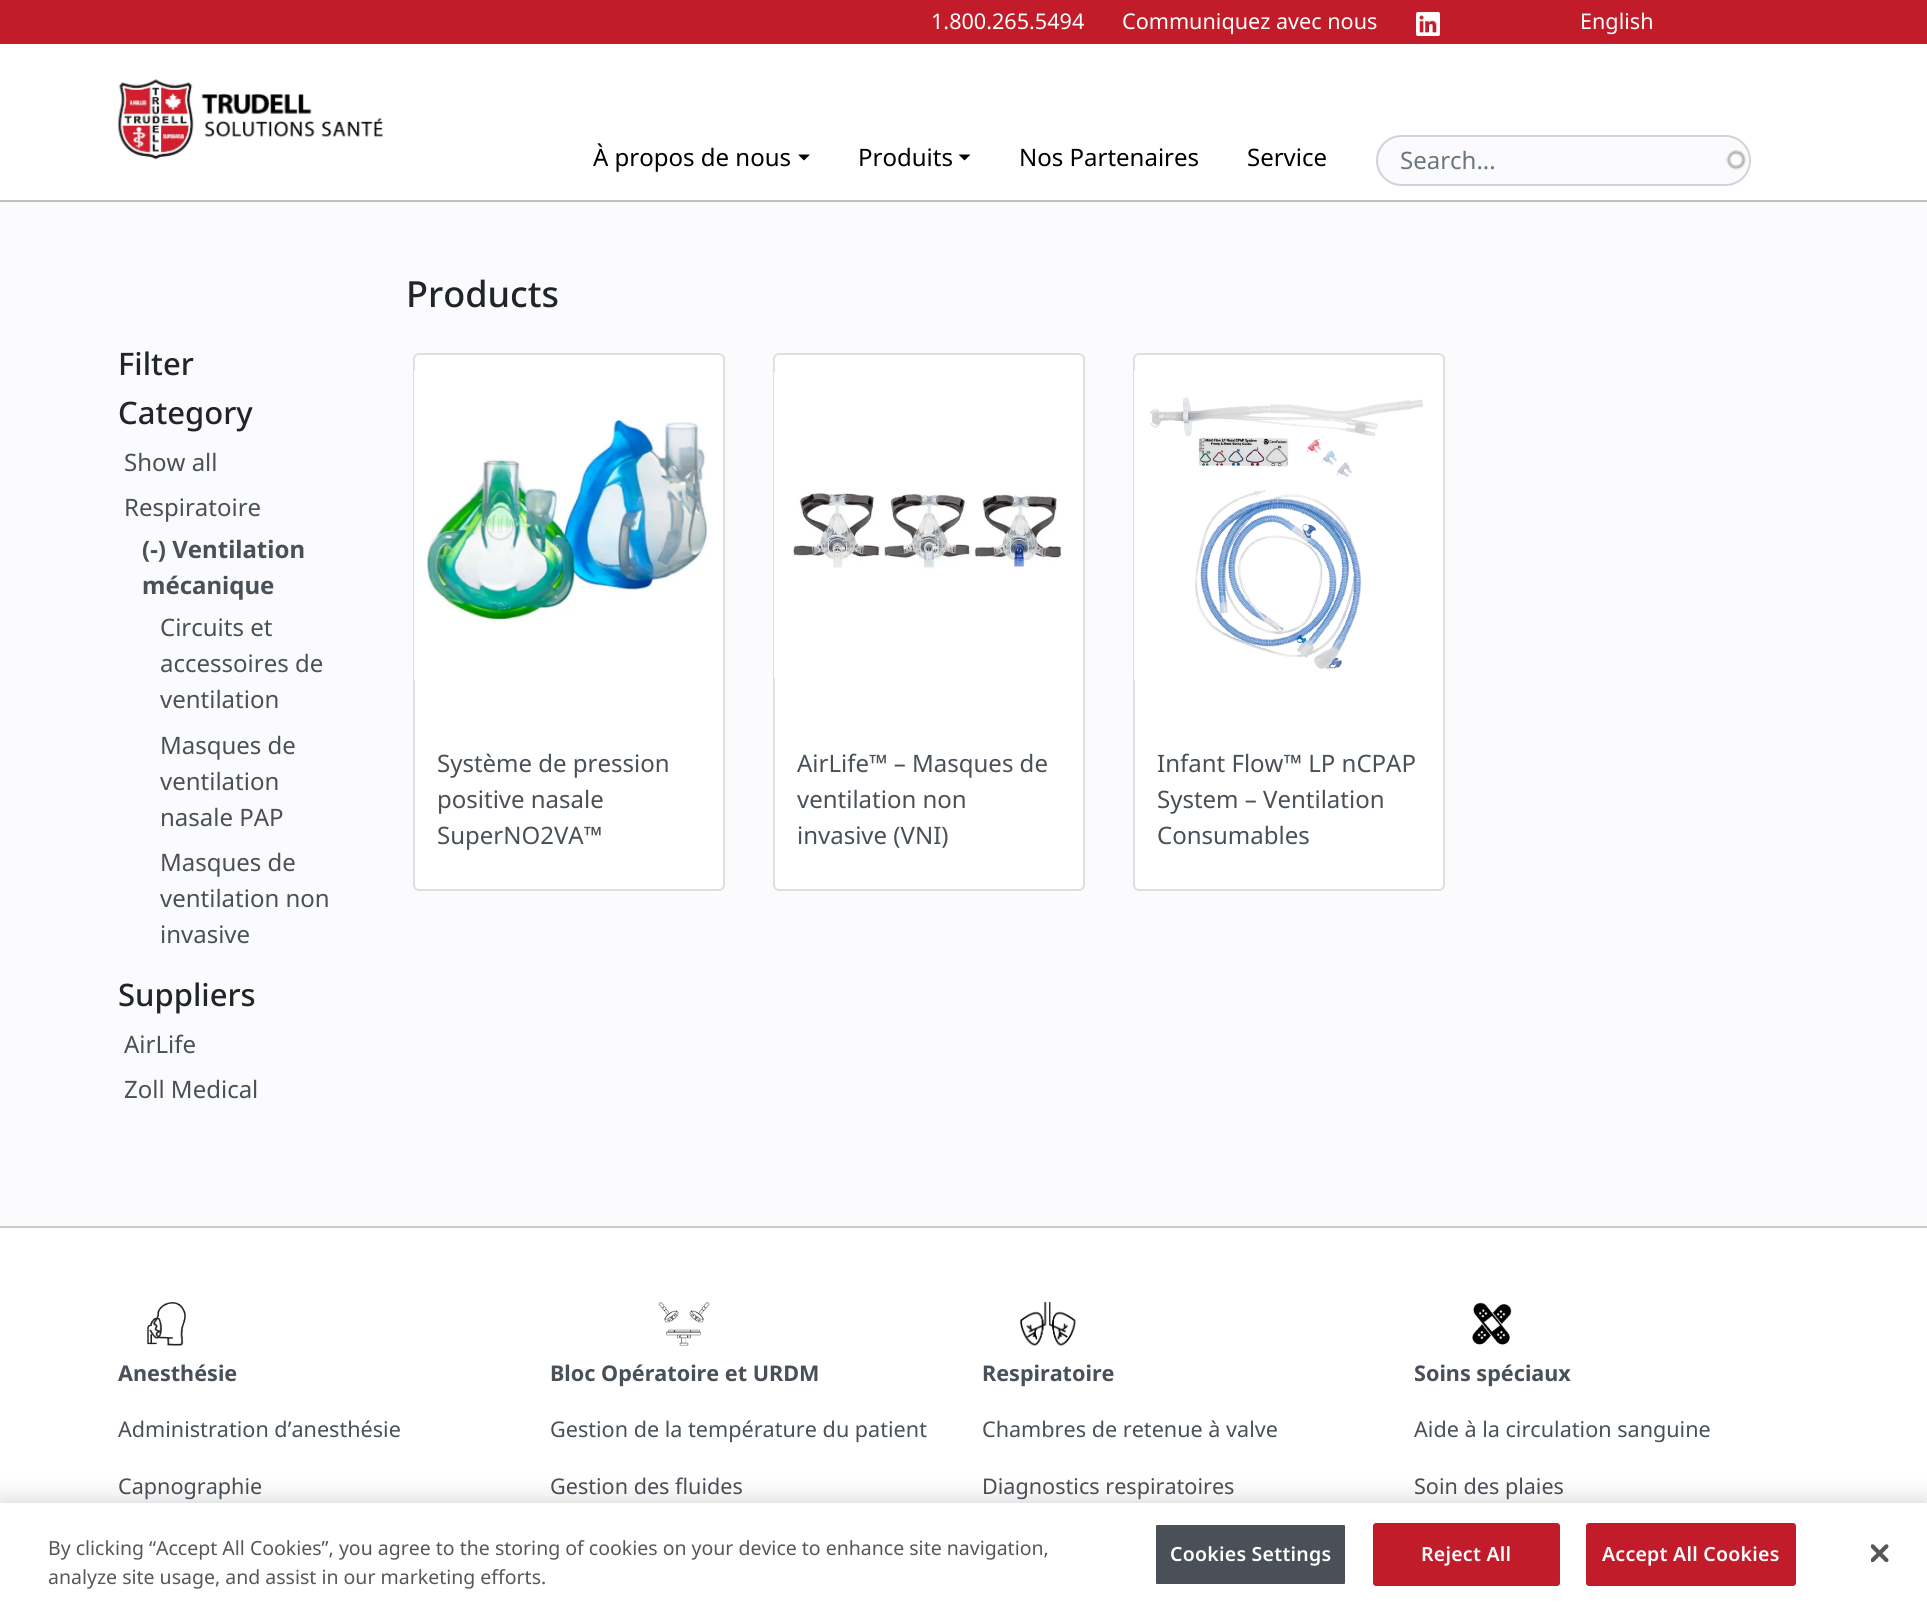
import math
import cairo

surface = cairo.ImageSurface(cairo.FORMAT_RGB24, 1927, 1609)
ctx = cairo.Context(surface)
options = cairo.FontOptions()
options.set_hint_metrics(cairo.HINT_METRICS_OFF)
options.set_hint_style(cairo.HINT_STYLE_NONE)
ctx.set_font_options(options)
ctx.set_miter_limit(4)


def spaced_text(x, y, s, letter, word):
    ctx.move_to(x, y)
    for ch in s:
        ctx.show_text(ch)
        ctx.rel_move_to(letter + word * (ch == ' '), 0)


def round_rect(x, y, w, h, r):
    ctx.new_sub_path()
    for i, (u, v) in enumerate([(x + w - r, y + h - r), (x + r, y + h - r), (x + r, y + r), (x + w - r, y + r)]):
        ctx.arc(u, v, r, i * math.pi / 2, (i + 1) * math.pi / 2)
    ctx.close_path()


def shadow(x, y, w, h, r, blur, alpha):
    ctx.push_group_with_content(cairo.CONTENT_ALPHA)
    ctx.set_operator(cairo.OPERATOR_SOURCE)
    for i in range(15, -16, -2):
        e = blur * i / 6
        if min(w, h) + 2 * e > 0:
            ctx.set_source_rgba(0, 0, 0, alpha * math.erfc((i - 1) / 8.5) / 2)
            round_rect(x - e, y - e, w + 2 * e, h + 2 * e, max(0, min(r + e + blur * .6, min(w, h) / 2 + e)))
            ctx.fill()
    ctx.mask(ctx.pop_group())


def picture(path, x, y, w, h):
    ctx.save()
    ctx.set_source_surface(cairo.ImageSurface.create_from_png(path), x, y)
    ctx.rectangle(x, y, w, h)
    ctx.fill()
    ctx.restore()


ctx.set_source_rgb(0.984, 0.984, 0.992)
ctx.paint()
ctx.set_source_rgb(0.761, 0.106, 0.161)
ctx.rectangle(0, 0, 1927, 44)
ctx.fill()
ctx.select_font_face("Noto Sans")
ctx.set_font_size(21.6)
ctx.set_source_rgb(1, 1, 1)
ctx.move_to(931, 29)
ctx.show_text("1.800.265.5494")
ctx.move_to(1122, 29)
ctx.show_text("Communiquez avec nous")
picture("img1.png", 1416, 12, 24, 24)
ctx.move_to(1580, 29)
ctx.show_text("English")
ctx.rectangle(0, 44, 1927, 156)
ctx.fill()
ctx.set_source_rgb(0.745, 0.745, 0.745)
ctx.rectangle(0, 200, 1927, 2)
ctx.fill()
picture("img2.png", 118, 79, 265, 81)
ctx.set_font_size(24)
ctx.set_source_rgb(0, 0, 0)
ctx.move_to(593, 166)
ctx.show_text("À propos de nous")
ctx.new_path()
ctx.move_to(798, 154.5)
ctx.line_to(810, 154.5)
ctx.line_to(804, 160.5)
ctx.close_path()
ctx.fill()
ctx.move_to(858, 166)
ctx.show_text("Produits")
ctx.new_path()
ctx.move_to(958.5, 154.5)
ctx.line_to(970.5, 154.5)
ctx.line_to(964.5, 160.5)
ctx.close_path()
ctx.fill()
ctx.move_to(1019, 166)
ctx.show_text("Nos Partenaires")
ctx.move_to(1247, 166)
ctx.show_text("Service")
ctx.set_source_rgb(0.984, 0.984, 0.992)
round_rect(1377, 137, 372, 48, 24)
ctx.fill()
picture("img3.png", 1726, 150, 21, 20)
round_rect(1377, 136, 373, 49, 24.5)
ctx.set_source_rgb(0.808, 0.831, 0.855)
ctx.stroke()
ctx.set_source_rgb(0.424, 0.459, 0.49)
ctx.move_to(1400, 169)
ctx.show_text("Search...")
ctx.select_font_face("Noto Sans Medium")
ctx.set_font_size(31)
ctx.set_source_rgb(0.129, 0.145, 0.161)
ctx.move_to(118, 375)
ctx.show_text("Filter")
ctx.move_to(118, 424)
ctx.show_text("Category")
ctx.select_font_face("Noto Sans")
ctx.set_font_size(24)
ctx.set_source_rgb(0.286, 0.314, 0.341)
ctx.move_to(124, 471)
ctx.show_text("Show all")
ctx.move_to(124, 516)
ctx.show_text("Respiratoire")
ctx.select_font_face("Noto Sans", cairo.FONT_SLANT_NORMAL, cairo.FONT_WEIGHT_BOLD)
ctx.move_to(142, 558)
ctx.show_text("(-) Ventilation")
ctx.move_to(142, 594)
ctx.show_text("mécanique")
ctx.select_font_face("Noto Sans")
ctx.move_to(160, 636)
ctx.show_text("Circuits et")
ctx.move_to(160, 672)
ctx.show_text("accessoires de")
ctx.move_to(160, 708)
ctx.show_text("ventilation")
ctx.move_to(160, 754)
ctx.show_text("Masques de")
ctx.move_to(160, 790)
ctx.show_text("ventilation")
ctx.move_to(160, 826)
ctx.show_text("nasale PAP")
ctx.move_to(160, 871)
ctx.show_text("Masques de")
ctx.move_to(160, 907)
ctx.show_text("ventilation non")
ctx.move_to(160, 943)
ctx.show_text("invasive")
ctx.select_font_face("Noto Sans Medium")
ctx.set_font_size(31)
ctx.set_source_rgb(0.129, 0.145, 0.161)
ctx.move_to(118, 1006)
ctx.show_text("Suppliers")
ctx.select_font_face("Noto Sans")
ctx.set_font_size(24)
ctx.set_source_rgb(0.286, 0.314, 0.341)
ctx.move_to(124, 1053)
ctx.show_text("AirLife")
ctx.move_to(124, 1098)
ctx.show_text("Zoll Medical")
ctx.select_font_face("Noto Sans Medium")
ctx.set_font_size(36)
ctx.set_source_rgb(0.129, 0.145, 0.161)
ctx.move_to(406, 307)
ctx.show_text("Products")
ctx.set_source_rgb(1, 1, 1)
round_rect(414, 354, 310, 536, 5)
ctx.fill_preserve()
ctx.set_source_rgb(0.875, 0.875, 0.875)
ctx.stroke()
picture("img4.png", 414, 370, 295, 310)
ctx.select_font_face("Noto Sans")
ctx.set_font_size(24)
ctx.set_source_rgb(0.286, 0.314, 0.341)
ctx.move_to(437, 772)
ctx.show_text("Système de pression")
ctx.move_to(437, 808)
ctx.show_text("positive nasale")
ctx.move_to(437, 844)
ctx.show_text("SuperNO2VA™")
ctx.set_source_rgb(1, 1, 1)
round_rect(774, 354, 310, 536, 5)
ctx.fill_preserve()
ctx.set_source_rgb(0.875, 0.875, 0.875)
ctx.stroke()
picture("img5.png", 774, 372, 288, 306)
ctx.set_source_rgb(0.286, 0.314, 0.341)
ctx.move_to(797, 772)
ctx.show_text("AirLife™ – Masques de")
ctx.move_to(797, 808)
ctx.show_text("ventilation non")
ctx.move_to(797, 844)
ctx.show_text("invasive (VNI)")
ctx.set_source_rgb(1, 1, 1)
round_rect(1134, 354, 310, 536, 5)
ctx.fill_preserve()
ctx.set_source_rgb(0.875, 0.875, 0.875)
ctx.stroke()
picture("img6.png", 1134, 370, 289, 310)
ctx.set_source_rgb(0.286, 0.314, 0.341)
ctx.move_to(1157, 772)
ctx.show_text("Infant Flow™ LP nCPAP")
ctx.move_to(1157, 808)
ctx.show_text("System – Ventilation")
ctx.move_to(1157, 844)
ctx.show_text("Consumables")
ctx.set_source_rgb(1, 1, 1)
ctx.rectangle(0, 1228, 1927, 275)
ctx.fill()
ctx.set_source_rgb(0.8, 0.8, 0.8)
ctx.rectangle(0, 1226, 1927, 2)
ctx.fill()
picture("img7.png", 147, 1302, 39, 44)
ctx.select_font_face("Noto Sans", cairo.FONT_SLANT_NORMAL, cairo.FONT_WEIGHT_BOLD)
ctx.set_font_size(21.6)
ctx.set_source_rgb(0.286, 0.314, 0.341)
ctx.move_to(118, 1381)
ctx.show_text("Anesthésie")
ctx.select_font_face("Noto Sans")
ctx.move_to(118, 1437)
ctx.show_text("Administration d’anesthésie")
ctx.move_to(118, 1494)
ctx.show_text("Capnographie")
picture("img8.png", 658, 1302, 52, 44)
ctx.select_font_face("Noto Sans", cairo.FONT_SLANT_NORMAL, cairo.FONT_WEIGHT_BOLD)
ctx.move_to(550, 1381)
ctx.show_text("Bloc Opératoire et URDM")
ctx.select_font_face("Noto Sans")
ctx.move_to(550, 1437)
ctx.show_text("Gestion de la température du patient")
ctx.move_to(550, 1494)
ctx.show_text("Gestion des fluides")
picture("img9.png", 1020, 1302, 56, 44)
ctx.select_font_face("Noto Sans", cairo.FONT_SLANT_NORMAL, cairo.FONT_WEIGHT_BOLD)
ctx.move_to(982, 1381)
ctx.show_text("Respiratoire")
ctx.select_font_face("Noto Sans")
ctx.move_to(982, 1437)
ctx.show_text("Chambres de retenue à valve")
ctx.move_to(982, 1494)
ctx.show_text("Diagnostics respiratoires")
picture("img10.png", 1472, 1302, 40, 43)
ctx.select_font_face("Noto Sans", cairo.FONT_SLANT_NORMAL, cairo.FONT_WEIGHT_BOLD)
ctx.move_to(1414, 1381)
ctx.show_text("Soins spéciaux")
ctx.select_font_face("Noto Sans")
ctx.move_to(1414, 1437)
ctx.show_text("Aide à la circulation sanguine")
ctx.move_to(1414, 1494)
ctx.show_text("Soin des plaies")
ctx.set_source_rgb(0, 0, 0)
shadow(0, 1503, 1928, 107, 0, 13.5, 0.2)
ctx.set_source_rgb(1, 1, 1)
ctx.rectangle(0, 1503, 1927, 106)
ctx.fill()
ctx.set_font_size(19.5)
ctx.set_source_rgb(0.337, 0.341, 0.349)
ctx.move_to(48, 1555)
ctx.show_text("By clicking “Accept All Cookies”, you agree to the storing of cookies on your device to enhance site navigation,")
ctx.move_to(48, 1584)
ctx.show_text("analyze site usage, and assist in our marketing efforts.")
ctx.set_source_rgb(0.286, 0.314, 0.341)
round_rect(1155, 1524, 191, 61, 2)
ctx.fill_preserve()
ctx.set_source_rgb(1, 1, 1)
ctx.stroke()
ctx.select_font_face("Noto Sans SemiBold")
spaced_text(1170, 1561, "Cookies Settings", 0.25, 0)
ctx.set_source_rgb(0.761, 0.106, 0.161)
round_rect(1374, 1524, 185, 61, 2)
ctx.fill_preserve()
ctx.stroke()
ctx.set_source_rgb(1, 1, 1)
spaced_text(1421, 1561, "Reject All", 0.25, 0)
ctx.set_source_rgb(0.761, 0.106, 0.161)
round_rect(1587, 1524, 208, 61, 2)
ctx.fill_preserve()
ctx.stroke()
ctx.set_source_rgb(1, 1, 1)
spaced_text(1602, 1561, "Accept All Cookies", 0.25, 0)
picture("img11.png", 1871, 1544, 18, 18)
surface.write_to_png("page.png")
